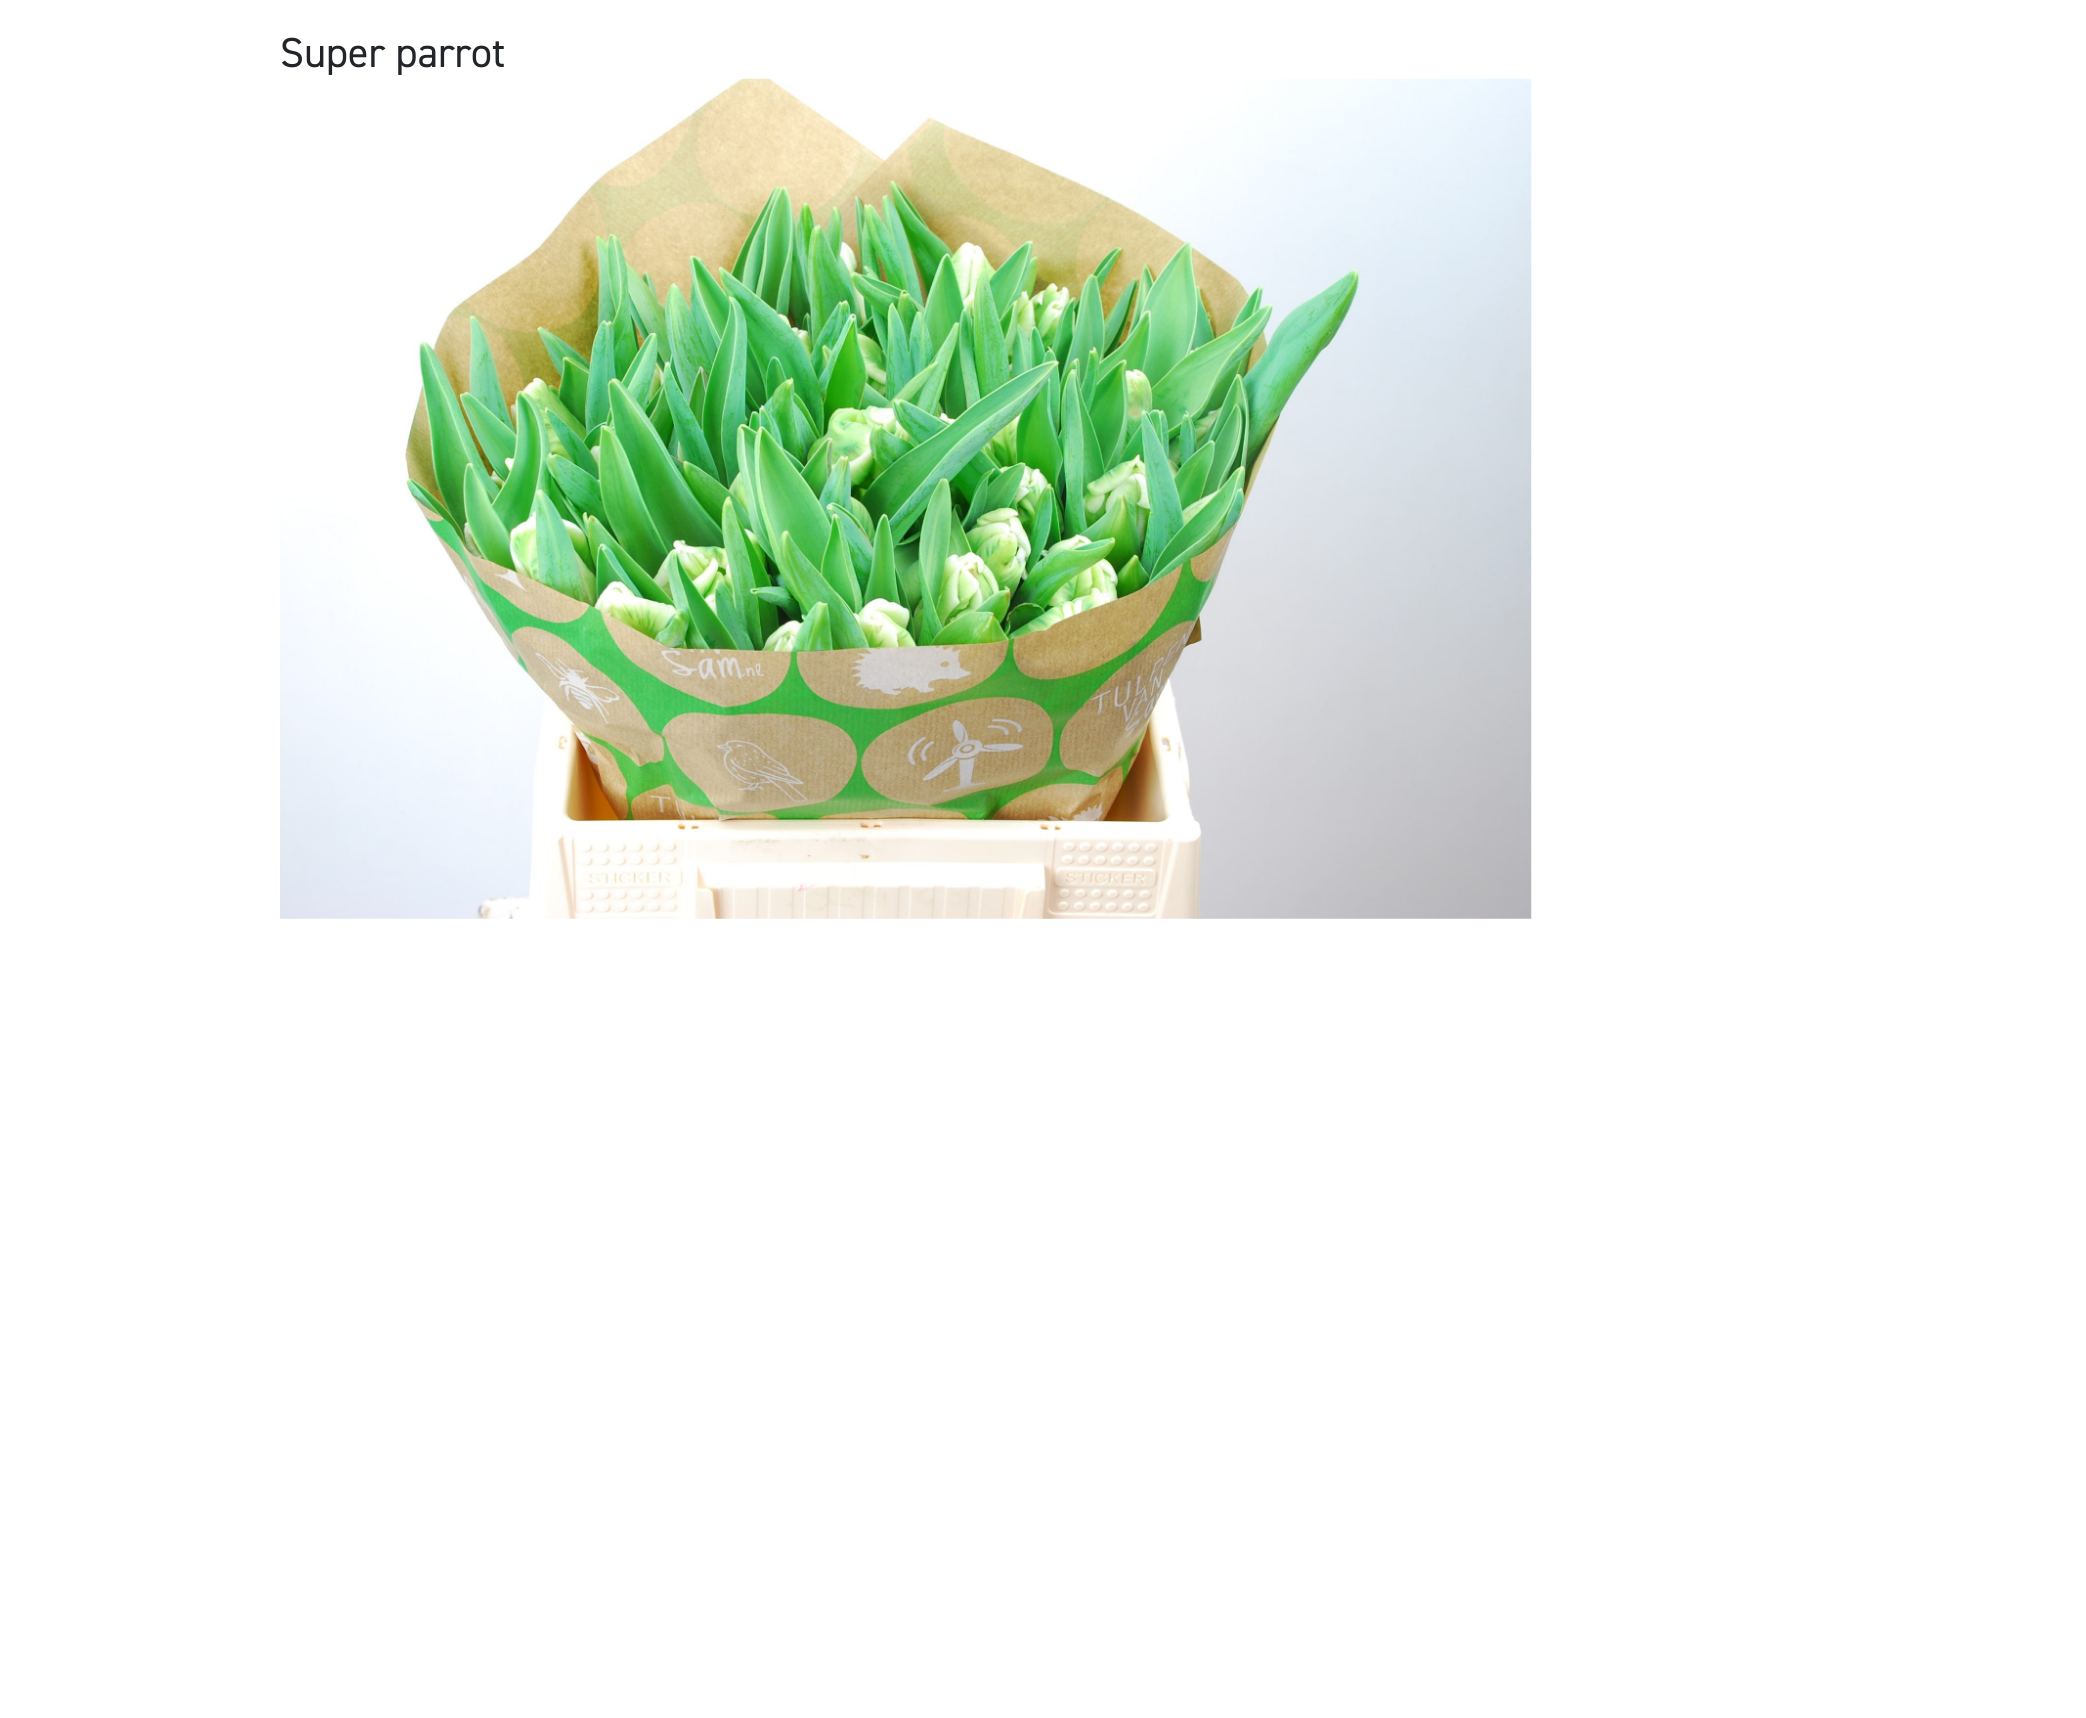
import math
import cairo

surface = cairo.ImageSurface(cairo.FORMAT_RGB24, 2086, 1718)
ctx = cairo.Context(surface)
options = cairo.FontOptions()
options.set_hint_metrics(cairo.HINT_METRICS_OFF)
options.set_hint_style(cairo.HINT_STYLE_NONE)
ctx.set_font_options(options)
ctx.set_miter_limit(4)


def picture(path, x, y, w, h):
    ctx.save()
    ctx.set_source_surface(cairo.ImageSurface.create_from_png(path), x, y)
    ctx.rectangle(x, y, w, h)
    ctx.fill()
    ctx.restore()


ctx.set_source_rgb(1, 1, 1)
ctx.paint()
ctx.select_font_face("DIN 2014")
ctx.set_font_size(42)
ctx.set_source_rgb(0.129, 0.145, 0.161)
ctx.move_to(280, 67)
ctx.show_text("Super parrot")
picture("img1.png", 280, 78, 1252, 841)
surface.write_to_png("page.png")
